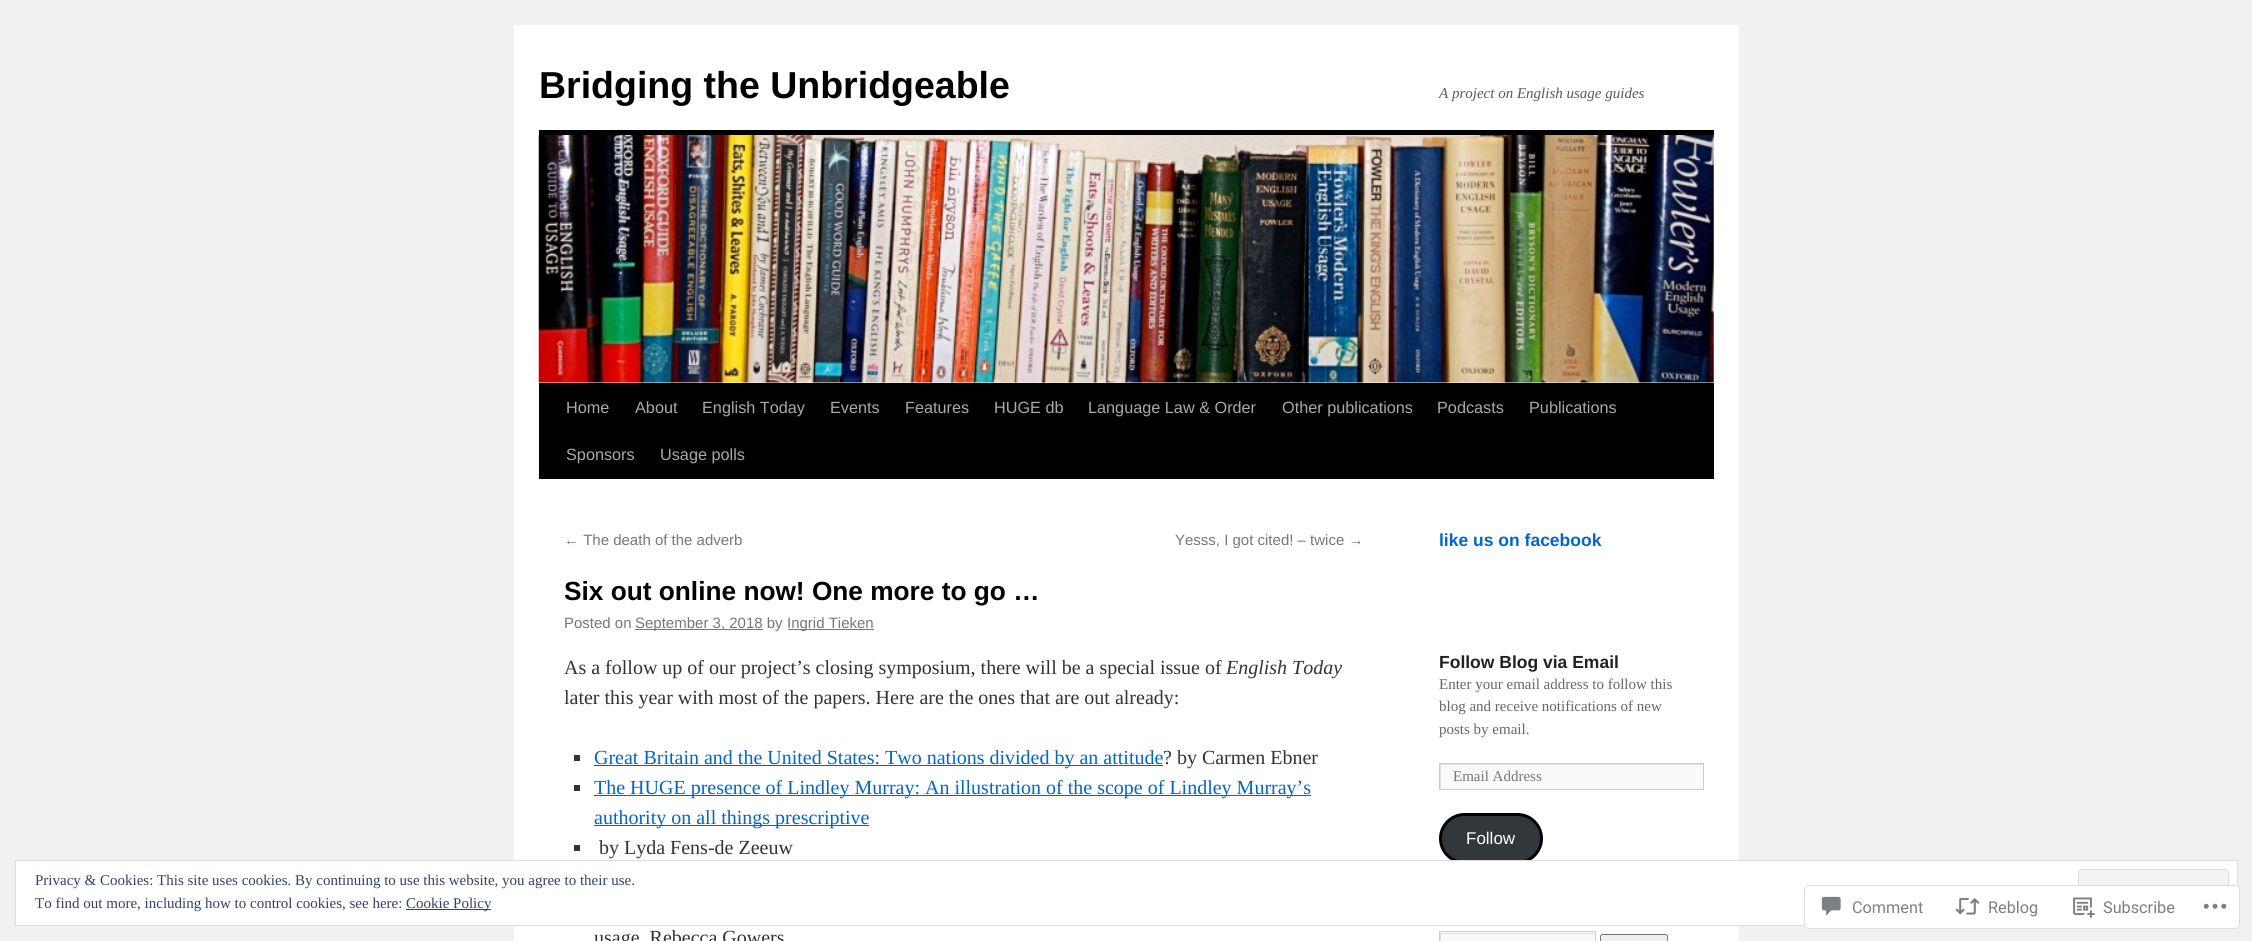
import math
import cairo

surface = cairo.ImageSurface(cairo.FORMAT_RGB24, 2252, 941)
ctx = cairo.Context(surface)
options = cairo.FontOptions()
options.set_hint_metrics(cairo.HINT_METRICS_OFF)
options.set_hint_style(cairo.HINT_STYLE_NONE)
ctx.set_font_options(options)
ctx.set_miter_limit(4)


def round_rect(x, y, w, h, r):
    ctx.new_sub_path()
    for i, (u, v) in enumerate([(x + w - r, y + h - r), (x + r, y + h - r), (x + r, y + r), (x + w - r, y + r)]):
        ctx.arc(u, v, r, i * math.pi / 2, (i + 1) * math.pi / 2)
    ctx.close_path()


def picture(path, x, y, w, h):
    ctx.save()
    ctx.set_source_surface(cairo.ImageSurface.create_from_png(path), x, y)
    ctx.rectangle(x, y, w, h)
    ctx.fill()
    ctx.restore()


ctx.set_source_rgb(0.945, 0.945, 0.945)
ctx.paint()
ctx.set_source_rgb(1, 1, 1)
ctx.rectangle(514, 25, 1225, 916)
ctx.fill()
ctx.set_source_rgb(0.196, 0.216, 0.235)
round_rect(1440.5, 814.5, 101, 48, 24)
ctx.fill_preserve()
ctx.set_source_rgb(0, 0, 0)
ctx.set_line_width(3)
ctx.stroke()
ctx.set_source_rgb(1, 1, 1)
ctx.rectangle(15.5, 860.5, 2222, 65)
ctx.fill_preserve()
ctx.set_source_rgb(0.871, 0.871, 0.871)
ctx.set_line_width(1)
ctx.stroke()
ctx.select_font_face("Liberation Serif")
ctx.set_font_size(15)
ctx.set_source_rgb(0.18, 0.267, 0.404)
ctx.move_to(35, 885)
ctx.show_text("Privacy & Cookies: This site uses cookies. By continuing to use this website, you agree to their use.")
ctx.set_source_rgb(0.953, 0.953, 0.953)
round_rect(2078.5, 869.5, 150, 48, 3.5)
ctx.fill_preserve()
ctx.set_source_rgb(0.871, 0.871, 0.871)
ctx.stroke()
ctx.set_source_rgb(0.18, 0.267, 0.404)
ctx.move_to(35, 908)
ctx.show_text("To find out more, including how to control cookies, see here:")
ctx.rectangle(406, 909, 85, 1)
ctx.fill()
ctx.move_to(406, 908)
ctx.show_text("Cookie Policy")
ctx.select_font_face("Liberation Sans", cairo.FONT_SLANT_NORMAL, cairo.FONT_WEIGHT_BOLD)
ctx.set_font_size(37.5)
ctx.set_source_rgb(0, 0, 0)
ctx.move_to(539, 98)
ctx.show_text("Bridging the Unbridgeable")
ctx.select_font_face("Liberation Serif", cairo.FONT_SLANT_ITALIC)
ctx.set_font_size(15)
ctx.set_source_rgb(0.349, 0.349, 0.349)
ctx.move_to(1439, 98)
ctx.show_text("A project on English usage guides")
ctx.set_source_rgb(0, 0, 0)
ctx.rectangle(539, 130, 1175, 5)
ctx.fill()
ctx.rectangle(539, 383, 1175, 96)
ctx.fill()
picture("img1.png", 538, 135, 1176, 248)
ctx.select_font_face("Liberation Sans")
ctx.set_font_size(16.25)
ctx.set_source_rgb(0.667, 0.667, 0.667)
ctx.move_to(566, 413)
ctx.show_text("Home")
ctx.move_to(635, 413)
ctx.show_text("About")
ctx.move_to(702, 413)
ctx.show_text("English Today")
ctx.move_to(830, 413)
ctx.show_text("Events")
ctx.move_to(905, 413)
ctx.show_text("Features")
ctx.move_to(994, 413)
ctx.show_text("HUGE db")
ctx.move_to(1088, 413)
ctx.show_text("Language Law & Order")
ctx.move_to(1282, 413)
ctx.show_text("Other publications")
ctx.move_to(1437, 413)
ctx.show_text("Podcasts")
ctx.move_to(1529, 413)
ctx.show_text("Publications")
ctx.move_to(566, 460)
ctx.show_text("Sponsors")
ctx.move_to(660, 460)
ctx.show_text("Usage polls")
ctx.set_font_size(15)
ctx.set_source_rgb(0.467, 0.467, 0.467)
ctx.move_to(564, 545)
ctx.show_text("← The death of the adverb")
ctx.move_to(1175, 545)
ctx.show_text("Yesss, I got cited! – twice →")
ctx.select_font_face("Liberation Sans", cairo.FONT_SLANT_NORMAL, cairo.FONT_WEIGHT_BOLD)
ctx.set_font_size(26.25)
ctx.set_source_rgb(0, 0, 0)
ctx.move_to(564, 600)
ctx.show_text("Six out online now! One more to go …")
ctx.select_font_face("Liberation Sans")
ctx.set_font_size(15)
ctx.set_source_rgb(0.467, 0.467, 0.467)
ctx.move_to(564, 628)
ctx.show_text("Posted on")
ctx.rectangle(635, 629, 128, 1)
ctx.fill()
ctx.move_to(635, 628)
ctx.show_text("September 3, 2018 by")
ctx.rectangle(788, 629, 86, 1)
ctx.fill()
ctx.move_to(787, 628)
ctx.show_text("Ingrid Tieken")
ctx.select_font_face("Liberation Serif")
ctx.set_font_size(20)
ctx.set_source_rgb(0.2, 0.2, 0.2)
ctx.move_to(564, 674)
ctx.show_text("As a follow up of our project’s closing symposium, there will be a special issue of")
ctx.select_font_face("Liberation Serif", cairo.FONT_SLANT_ITALIC)
ctx.move_to(1226, 674)
ctx.show_text("English Today")
ctx.select_font_face("Liberation Serif")
ctx.move_to(564, 704)
ctx.show_text("later this year with most of the papers. Here are the ones that are out already:")
ctx.rectangle(574, 755, 6, 6)
ctx.fill()
ctx.set_source_rgb(0, 0.4, 0.8)
ctx.rectangle(594, 765, 569, 1)
ctx.fill()
ctx.move_to(594, 764)
ctx.show_text("Great Britain and the United States: Two nations divided by an attitude")
ctx.set_source_rgb(0.2, 0.2, 0.2)
ctx.move_to(1163, 764)
ctx.show_text("? by Carmen Ebner")
ctx.rectangle(574, 785, 6, 6)
ctx.fill()
ctx.set_source_rgb(0, 0.4, 0.8)
ctx.rectangle(594, 795, 717, 1)
ctx.fill()
ctx.move_to(594, 794)
ctx.show_text("The HUGE presence of Lindley Murray: An illustration of the scope of Lindley Murray’s")
ctx.rectangle(594, 825, 275, 1)
ctx.fill()
ctx.move_to(594, 824)
ctx.show_text("authority on all things prescriptive")
ctx.set_source_rgb(0.2, 0.2, 0.2)
ctx.rectangle(574, 845, 6, 6)
ctx.fill()
ctx.move_to(599, 854)
ctx.show_text("by Lyda Fens-de Zeeuw")
ctx.move_to(594, 944)
ctx.show_text("usage, Rebecca Gowers")
ctx.select_font_face("Liberation Sans", cairo.FONT_SLANT_NORMAL, cairo.FONT_WEIGHT_BOLD)
ctx.set_font_size(17.5)
ctx.set_source_rgb(0, 0.4, 0.8)
ctx.move_to(1439, 546)
ctx.show_text("like us on facebook")
ctx.set_source_rgb(0.133, 0.133, 0.133)
ctx.move_to(1439, 668)
ctx.show_text("Follow Blog via Email")
ctx.select_font_face("Liberation Serif")
ctx.set_font_size(15)
ctx.set_source_rgb(0.4, 0.4, 0.4)
ctx.move_to(1439, 689)
ctx.show_text("Enter your email address to follow this")
ctx.move_to(1439, 711)
ctx.show_text("blog and receive notifications of new")
ctx.move_to(1439, 734)
ctx.show_text("posts by email.")
ctx.set_source_rgb(0.976, 0.976, 0.976)
ctx.rectangle(1441, 765, 262, 24)
ctx.fill()
ctx.save()
ctx.rectangle(1440, 764, 263, 25)
ctx.clip()
ctx.set_source_rgb(0.878, 0.878, 0.878)
ctx.set_fill_rule(cairo.FILL_RULE_EVEN_ODD)
ctx.new_path()
ctx.move_to(1316, 640)
ctx.line_to(1826, 640)
ctx.line_to(1826, 912)
ctx.line_to(1316, 912)
ctx.close_path()
ctx.move_to(1441, 765)
ctx.line_to(1704, 765)
ctx.line_to(1704, 790)
ctx.line_to(1441, 790)
ctx.close_path()
ctx.fill()
ctx.restore()
ctx.rectangle(1439.5, 763.5, 264, 26)
ctx.set_source_rgb(0.8, 0.8, 0.8)
ctx.stroke()
ctx.set_source_rgb(0.467, 0.467, 0.467)
ctx.move_to(1453, 781)
ctx.show_text("Email Address")
ctx.select_font_face("Liberation Sans")
ctx.set_font_size(17)
ctx.set_source_rgb(1, 1, 1)
ctx.move_to(1466, 844)
ctx.show_text("Follow")
ctx.set_source_rgb(0.976, 0.976, 0.976)
ctx.rectangle(1440, 932, 155, 9)
ctx.fill()
ctx.save()
ctx.rectangle(1440, 933, 155, 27)
ctx.clip()
ctx.set_source_rgb(0.878, 0.878, 0.878)
ctx.set_fill_rule(cairo.FILL_RULE_EVEN_ODD)
ctx.new_path()
ctx.move_to(1316, 809)
ctx.line_to(1719, 809)
ctx.line_to(1719, 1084)
ctx.line_to(1316, 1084)
ctx.close_path()
ctx.move_to(1441, 934)
ctx.line_to(1596, 934)
ctx.line_to(1596, 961)
ctx.line_to(1441, 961)
ctx.close_path()
ctx.fill()
ctx.restore()
ctx.rectangle(1439.5, 931.5, 156, 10)
ctx.set_source_rgb(0.8, 0.8, 0.8)
ctx.stroke()
ctx.set_source_rgb(0.937, 0.937, 0.937)
round_rect(1600.5, 934.5, 67, 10, 2)
ctx.fill_preserve()
ctx.set_source_rgb(0.463, 0.463, 0.463)
ctx.stroke()
ctx.set_source_rgba(1, 1, 1, 0.98)
round_rect(1804, 885, 436, 44, 4)
ctx.fill()
round_rect(1804.5, 885.5, 435, 43, 3.5)
ctx.set_source_rgba(0.863, 0.863, 0.871, 0.98)
ctx.stroke()
picture("img2.png", 1821, 896, 20, 20)
ctx.select_font_face("Roboto")
ctx.set_font_size(16.25)
ctx.set_source_rgb(0.482, 0.498, 0.522)
ctx.move_to(1852, 913)
ctx.show_text("Comment")
picture("img3.png", 1955, 897, 25, 18)
ctx.move_to(1988, 913)
ctx.show_text("Reblog")
picture("img4.png", 2073, 897, 22, 21)
ctx.move_to(2103, 913)
ctx.show_text("Subscribe")
picture("img5.png", 2203, 903, 24, 6)
surface.write_to_png("page.png")
